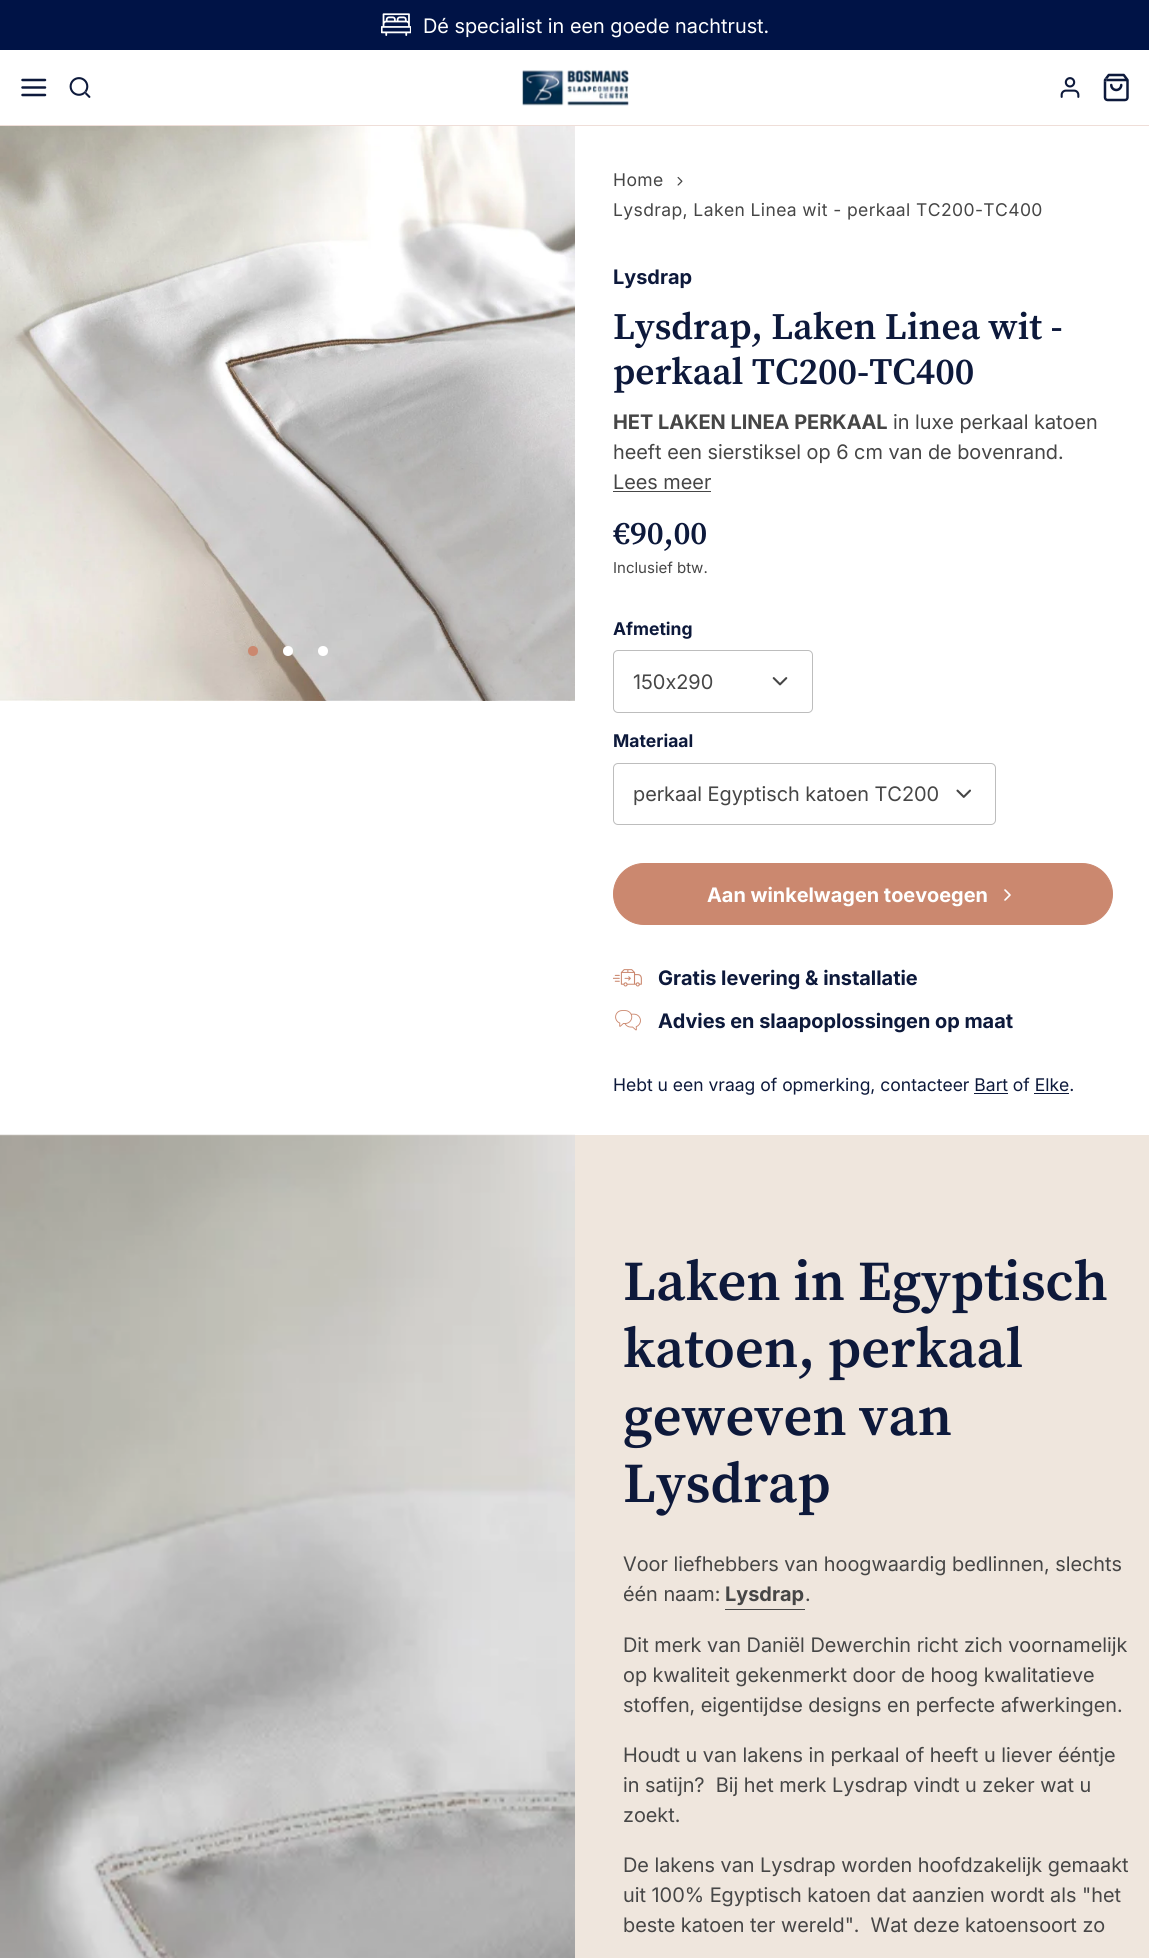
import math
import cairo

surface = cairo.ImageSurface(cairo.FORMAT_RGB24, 1149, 1958)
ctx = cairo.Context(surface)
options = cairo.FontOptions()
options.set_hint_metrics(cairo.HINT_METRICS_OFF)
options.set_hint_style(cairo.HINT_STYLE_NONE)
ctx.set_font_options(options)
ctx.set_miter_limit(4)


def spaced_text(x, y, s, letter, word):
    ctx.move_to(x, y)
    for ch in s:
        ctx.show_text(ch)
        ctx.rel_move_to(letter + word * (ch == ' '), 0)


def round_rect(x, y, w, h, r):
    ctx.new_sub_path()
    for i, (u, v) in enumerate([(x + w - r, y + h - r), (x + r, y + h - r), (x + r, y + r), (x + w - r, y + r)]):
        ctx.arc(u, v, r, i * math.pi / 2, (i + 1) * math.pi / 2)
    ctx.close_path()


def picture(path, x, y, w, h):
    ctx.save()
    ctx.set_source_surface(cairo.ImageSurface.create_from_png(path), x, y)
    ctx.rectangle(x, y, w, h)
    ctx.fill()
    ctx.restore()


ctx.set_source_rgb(1, 1, 1)
ctx.paint()
ctx.set_source_rgb(0, 0.078, 0.275)
ctx.rectangle(0, 0, 1149, 50)
ctx.fill()
picture("img1.png", 381, 13, 30, 23)
ctx.select_font_face("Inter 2")
ctx.set_font_size(20)
ctx.set_source_rgb(1, 1, 1)
ctx.move_to(423, 33)
ctx.show_text("Dé specialist in een goede nachtrust.")
ctx.set_source_rgb(0.937, 0.871, 0.847)
ctx.rectangle(0, 125, 1149, 1)
ctx.fill()
picture("img2.png", 21, 78, 26, 19)
picture("img3.png", 69, 77, 22, 21)
picture("img4.png", 521, 69, 108, 37)
picture("img5.png", 1060, 77, 20, 21)
picture("img6.png", 1103, 73, 26, 29)
picture("img7.png", 0, 126, 575, 575)
ctx.set_source_rgb(0.796, 0.533, 0.435)
ctx.arc(253, 651, 5, 0, 2 * math.pi)
ctx.fill()
ctx.set_source_rgb(1, 1, 1)
ctx.arc(288, 651, 5, 0, 2 * math.pi)
ctx.fill()
ctx.arc(323, 651, 5, 0, 2 * math.pi)
ctx.fill()
ctx.select_font_face("Inter")
ctx.set_font_size(17.5)
ctx.set_source_rgb(0.275, 0.275, 0.275)
spaced_text(613, 186, "Home", 0.4, 0)
picture("img8.png", 677, 176, 6, 10)
spaced_text(613, 216, "Lysdrap, Laken Linea wit - perkaal TC200-TC400", 0.4, 0)
ctx.select_font_face("Inter", cairo.FONT_SLANT_NORMAL, cairo.FONT_WEIGHT_BOLD)
ctx.set_font_size(20)
ctx.set_source_rgb(0.051, 0.098, 0.231)
ctx.move_to(613, 284)
ctx.show_text("Lysdrap")
ctx.select_font_face("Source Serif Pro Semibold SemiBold")
ctx.set_font_size(37.5)
ctx.move_to(613, 339)
ctx.show_text("Lysdrap, Laken Linea wit -")
ctx.move_to(613, 384)
ctx.show_text("perkaal TC200-TC400")
ctx.select_font_face("Inter", cairo.FONT_SLANT_NORMAL, cairo.FONT_WEIGHT_BOLD)
ctx.set_font_size(20)
ctx.set_source_rgb(0.275, 0.275, 0.275)
ctx.move_to(613, 429)
ctx.show_text("HET LAKEN LINEA PERKAAL")
ctx.select_font_face("Inter 2")
ctx.move_to(893, 429)
ctx.show_text("in luxe perkaal katoen")
ctx.move_to(613, 459)
ctx.show_text("heeft een sierstiksel op 6 cm van de bovenrand.")
ctx.rectangle(613, 491, 98, 1)
ctx.fill()
ctx.move_to(613, 489)
ctx.show_text("Lees meer")
ctx.select_font_face("Source Serif Pro Semibold SemiBold")
ctx.set_font_size(32.5)
ctx.set_source_rgb(0.051, 0.098, 0.231)
ctx.move_to(613, 544)
ctx.show_text("€90,00")
ctx.select_font_face("Inter")
ctx.set_font_size(15)
ctx.set_source_rgb(0.275, 0.275, 0.275)
ctx.move_to(613, 573)
ctx.show_text("Inclusief btw.")
ctx.select_font_face("Inter 2", cairo.FONT_SLANT_NORMAL, cairo.FONT_WEIGHT_BOLD)
ctx.set_font_size(17.5)
ctx.set_source_rgb(0.051, 0.098, 0.231)
ctx.move_to(613, 635)
ctx.show_text("Afmeting")
round_rect(613.5, 650.5, 199, 62, 4.5)
ctx.set_source_rgb(0.741, 0.741, 0.741)
ctx.set_line_width(1)
ctx.stroke()
ctx.select_font_face("Inter 2")
ctx.set_font_size(20)
ctx.set_source_rgb(0.275, 0.275, 0.275)
ctx.move_to(633, 689)
ctx.show_text("150x290")
picture("img9.png", 772, 677, 16, 9)
ctx.select_font_face("Inter 2", cairo.FONT_SLANT_NORMAL, cairo.FONT_WEIGHT_BOLD)
ctx.set_font_size(17.5)
ctx.set_source_rgb(0.051, 0.098, 0.231)
ctx.move_to(613, 747)
ctx.show_text("Materiaal")
round_rect(613.5, 763.5, 382, 61, 4.5)
ctx.set_source_rgb(0.741, 0.741, 0.741)
ctx.stroke()
ctx.select_font_face("Inter 2")
ctx.set_font_size(20)
ctx.set_source_rgb(0.275, 0.275, 0.275)
ctx.move_to(633, 801)
ctx.show_text("perkaal Egyptisch katoen TC200")
picture("img10.png", 956, 789, 15, 9)
ctx.set_source_rgb(0.796, 0.533, 0.435)
round_rect(613.5, 863.5, 499, 61, 30.5)
ctx.fill_preserve()
ctx.stroke()
ctx.select_font_face("Inter", cairo.FONT_SLANT_NORMAL, cairo.FONT_WEIGHT_BOLD)
ctx.set_source_rgb(1, 1, 1)
ctx.move_to(707, 902)
ctx.show_text("Aan winkelwagen toevoegen")
picture("img11.png", 1004, 889, 7, 12)
picture("img12.png", 613, 969, 29, 18)
ctx.set_source_rgb(0.051, 0.098, 0.231)
ctx.move_to(658, 985)
ctx.show_text("Gratis levering & installatie")
picture("img13.png", 615, 1010, 26, 21)
ctx.move_to(658, 1028)
ctx.show_text("Advies en slaapoplossingen op maat")
ctx.select_font_face("Inter")
ctx.set_font_size(17.5)
ctx.move_to(613, 1091)
ctx.show_text("Hebt u een vraag of opmerking, contacteer Bart of Elke.")
ctx.rectangle(974, 1093, 34, 1)
ctx.fill()
ctx.rectangle(1034, 1093, 35, 1)
ctx.fill()
ctx.set_source_rgb(0.937, 0.902, 0.867)
ctx.rectangle(0, 1135, 1149, 823)
ctx.fill()
picture("img14.png", 0, 1134, 575, 824)
ctx.select_font_face("Source Serif Pro Semibold SemiBold")
ctx.set_font_size(56.25)
ctx.set_source_rgb(0.051, 0.098, 0.231)
ctx.move_to(623, 1300)
ctx.show_text("Laken in Egyptisch")
ctx.move_to(623, 1367)
ctx.show_text("katoen, perkaal")
ctx.move_to(623, 1435)
ctx.show_text("geweven van")
ctx.move_to(623, 1502)
ctx.show_text("Lysdrap")
ctx.select_font_face("Inter 2")
ctx.set_font_size(20)
ctx.set_source_rgb(0.275, 0.275, 0.275)
ctx.move_to(623, 1571)
ctx.show_text("Voor liefhebbers van hoogwaardig bedlinnen, slechts")
ctx.move_to(623, 1601)
ctx.show_text("één naam:")
ctx.rectangle(725, 1609, 80, 1)
ctx.fill()
ctx.select_font_face("Inter", cairo.FONT_SLANT_NORMAL, cairo.FONT_WEIGHT_BOLD)
ctx.move_to(725, 1601)
ctx.show_text("Lysdrap")
ctx.select_font_face("Inter 2")
ctx.move_to(805, 1601)
ctx.show_text(".")
ctx.move_to(623, 1652)
ctx.show_text("Dit merk van Daniël Dewerchin richt zich voornamelijk")
ctx.move_to(623, 1682)
ctx.show_text("op kwaliteit gekenmerkt door de hoog kwalitatieve")
ctx.move_to(623, 1712)
ctx.show_text("stoffen, eigentijdse designs en perfecte afwerkingen.")
ctx.move_to(623, 1762)
ctx.show_text("Houdt u van lakens in perkaal of heeft u liever ééntje")
ctx.move_to(623, 1792)
ctx.show_text("in satijn?  Bij het merk Lysdrap vindt u zeker wat u")
ctx.move_to(623, 1822)
ctx.show_text("zoekt.")
ctx.move_to(623, 1872)
ctx.show_text("De lakens van Lysdrap worden hoofdzakelijk gemaakt")
ctx.move_to(623, 1902)
ctx.show_text("uit 100% Egyptisch katoen dat aanzien wordt als \"het")
ctx.move_to(623, 1932)
ctx.show_text("beste katoen ter wereld\".  Wat deze katoensoort zo")
surface.write_to_png("page.png")
